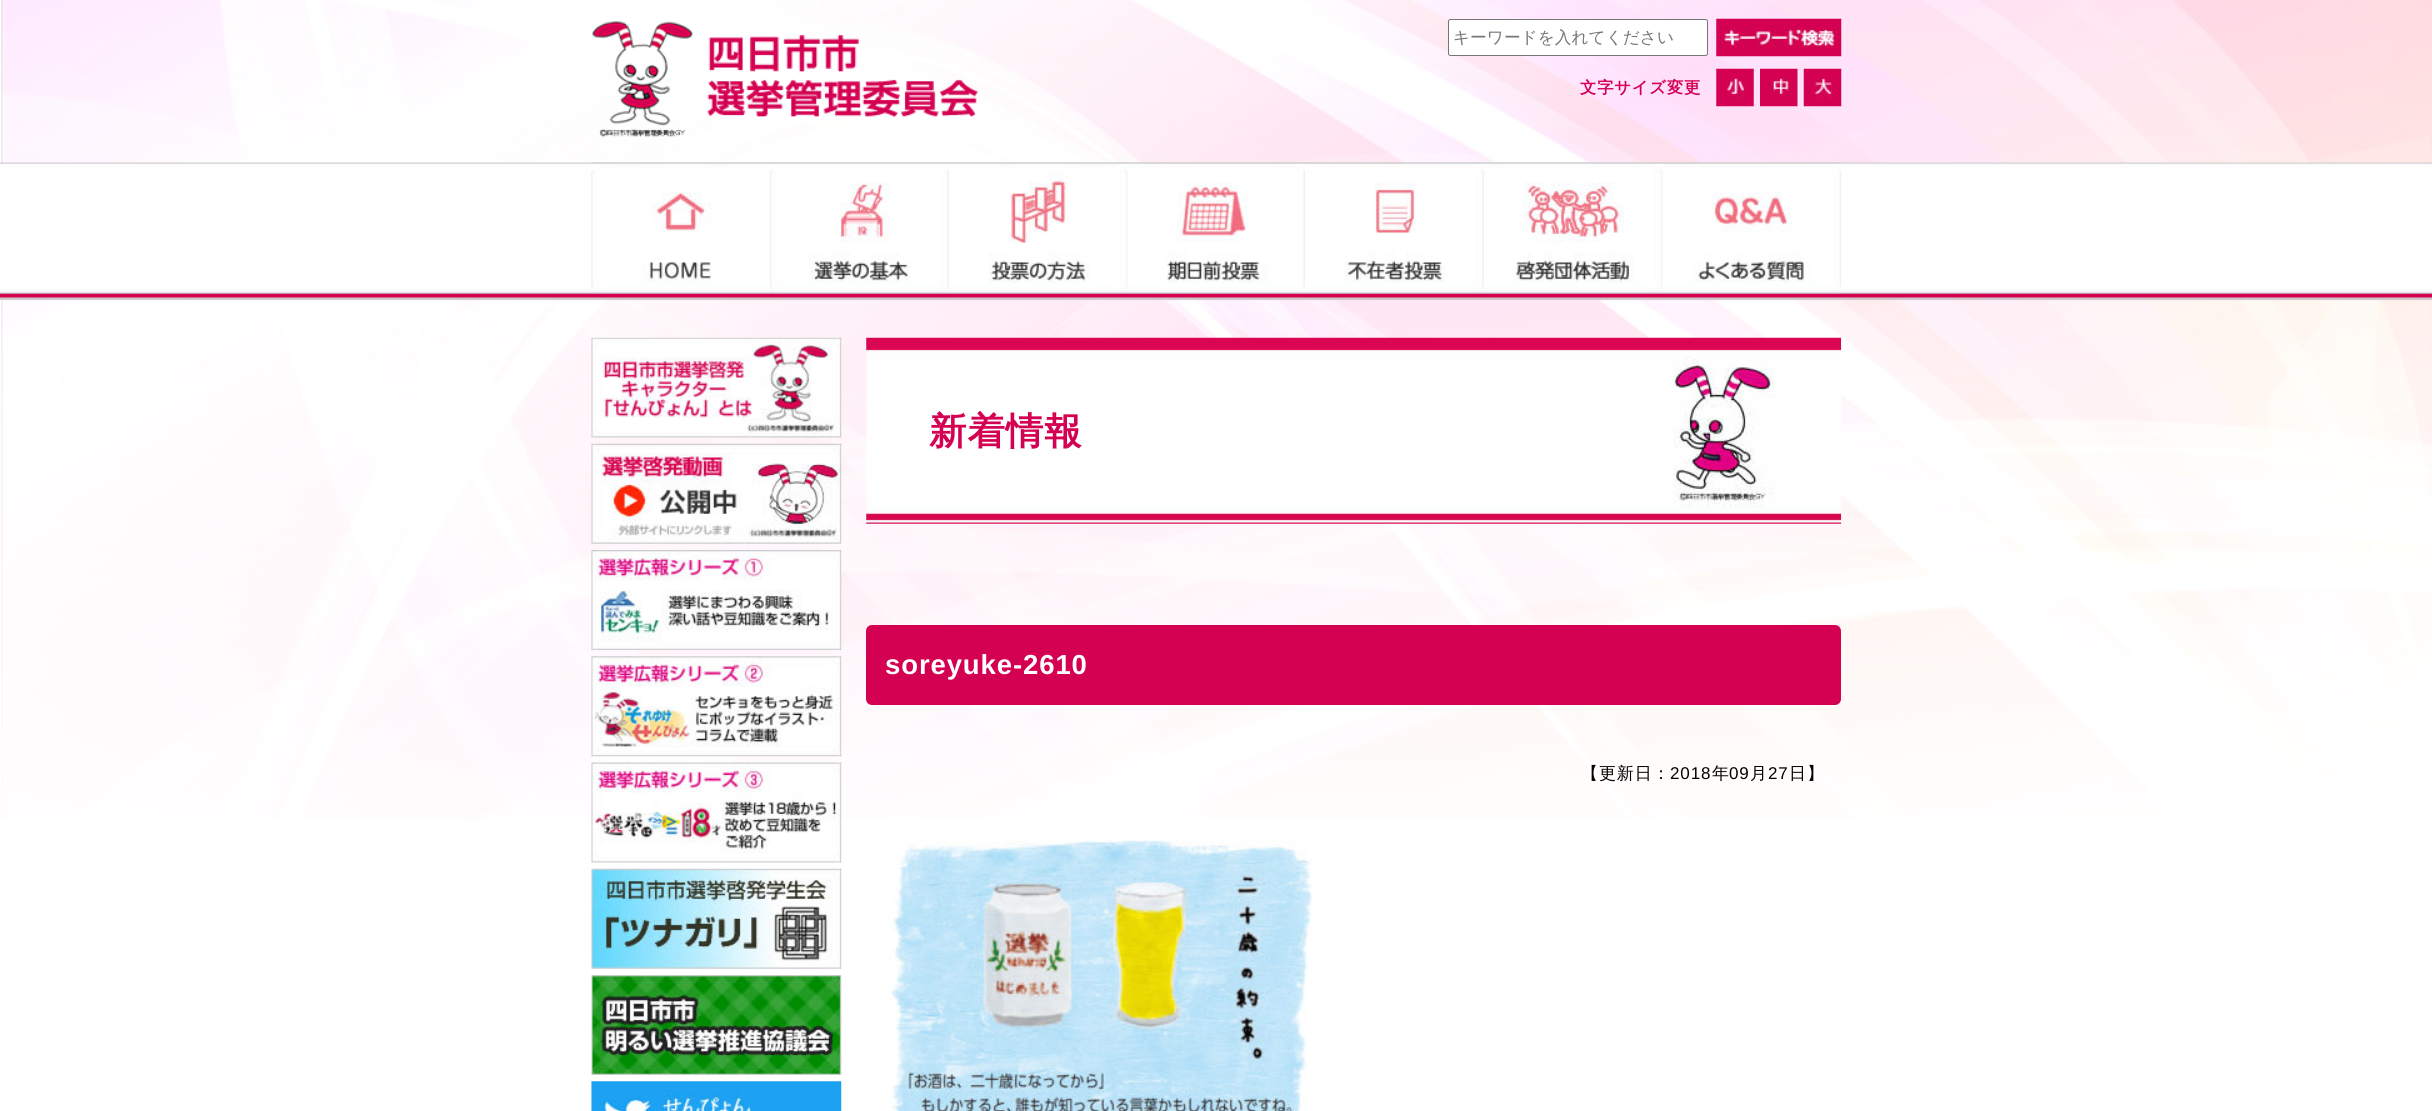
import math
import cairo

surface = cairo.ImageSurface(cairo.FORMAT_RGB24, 2432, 1111)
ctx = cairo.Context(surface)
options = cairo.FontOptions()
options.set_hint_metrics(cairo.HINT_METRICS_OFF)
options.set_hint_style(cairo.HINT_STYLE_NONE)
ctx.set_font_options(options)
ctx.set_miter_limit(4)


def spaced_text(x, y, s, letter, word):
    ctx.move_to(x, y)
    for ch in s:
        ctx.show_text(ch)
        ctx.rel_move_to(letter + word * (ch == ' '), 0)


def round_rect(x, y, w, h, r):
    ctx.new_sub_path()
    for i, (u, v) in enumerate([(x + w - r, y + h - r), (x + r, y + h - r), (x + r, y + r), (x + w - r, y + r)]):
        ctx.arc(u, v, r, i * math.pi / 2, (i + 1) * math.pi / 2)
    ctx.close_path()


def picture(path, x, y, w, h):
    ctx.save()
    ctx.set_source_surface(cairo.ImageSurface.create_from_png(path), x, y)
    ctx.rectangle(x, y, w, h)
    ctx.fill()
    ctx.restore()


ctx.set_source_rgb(1, 1, 1)
ctx.paint()
picture("img1.png", 1, 0, 2431, 820)
picture("img2.png", 592, 21, 386, 116)
ctx.set_source_rgb(1, 1, 1)
round_rect(1448.5, 19.5, 259, 36, 2)
ctx.fill_preserve()
ctx.set_source_rgb(0.463, 0.463, 0.463)
ctx.set_line_width(1)
ctx.stroke()
ctx.select_font_face("WenQuanYi Zen Hei Medium")
ctx.set_font_size(16.7)
ctx.set_source_rgb(0.459, 0.459, 0.459)
ctx.move_to(1453, 43)
ctx.show_text("キーワードを入れてください")
picture("img3.png", 1716, 18, 126, 39)
ctx.select_font_face("WenQuanYi Zen Hei", cairo.FONT_SLANT_NORMAL, cairo.FONT_WEIGHT_BOLD)
ctx.set_font_size(16.25)
ctx.set_source_rgb(0.831, 0, 0.322)
spaced_text(1580, 93, "文字サイズ変更", 0.9, 0)
picture("img4.png", 1716, 68, 38, 39)
picture("img5.png", 1760, 68, 38, 39)
picture("img6.png", 1803, 68, 39, 39)
picture("img7.png", 0, 162, 2432, 138)
picture("img8.png", 591, 162, 179, 132)
picture("img9.png", 770, 162, 179, 132)
picture("img10.png", 949, 162, 179, 132)
picture("img11.png", 1127, 162, 178, 132)
picture("img12.png", 1305, 162, 179, 132)
picture("img13.png", 1484, 162, 179, 132)
picture("img14.png", 1662, 162, 180, 132)
picture("img15.png", 591, 337, 251, 101)
picture("img16.png", 591, 443, 251, 101)
picture("img17.png", 591, 550, 251, 100)
picture("img18.png", 591, 656, 251, 101)
picture("img19.png", 591, 762, 251, 101)
picture("img20.png", 591, 868, 251, 101)
picture("img21.png", 591, 975, 251, 100)
picture("img22.png", 591, 1081, 251, 30)
picture("img23.png", 866, 337, 976, 188)
ctx.set_font_size(37.5)
spaced_text(929, 444, "新着情報", 0.9, 0)
round_rect(866, 625, 975, 80, 6)
ctx.fill()
ctx.select_font_face("Liberation Sans", cairo.FONT_SLANT_NORMAL, cairo.FONT_WEIGHT_BOLD)
ctx.set_font_size(27.5)
ctx.set_source_rgb(1, 1, 1)
spaced_text(885, 674, "soreyuke-2610", 0.9, 0)
ctx.select_font_face("WenQuanYi Zen Hei Medium")
ctx.set_font_size(17)
ctx.set_source_rgb(0, 0, 0)
spaced_text(1581, 779, "【更新日：", 0.9, 0)
ctx.select_font_face("Liberation Sans")
spaced_text(1670, 779, "2018", 0.9, 0)
ctx.select_font_face("WenQuanYi Zen Hei Medium")
spaced_text(1712, 779, "年", 0.9, 0)
ctx.select_font_face("Liberation Sans")
spaced_text(1729, 779, "09", 0.9, 0)
ctx.select_font_face("WenQuanYi Zen Hei Medium")
spaced_text(1750, 779, "月", 0.9, 0)
ctx.select_font_face("Liberation Sans")
spaced_text(1768, 779, "27", 0.9, 0)
ctx.select_font_face("WenQuanYi Zen Hei Medium")
spaced_text(1789, 779, "日】", 0.9, 0)
picture("img24.png", 889, 840, 424, 271)
surface.write_to_png("page.png")
